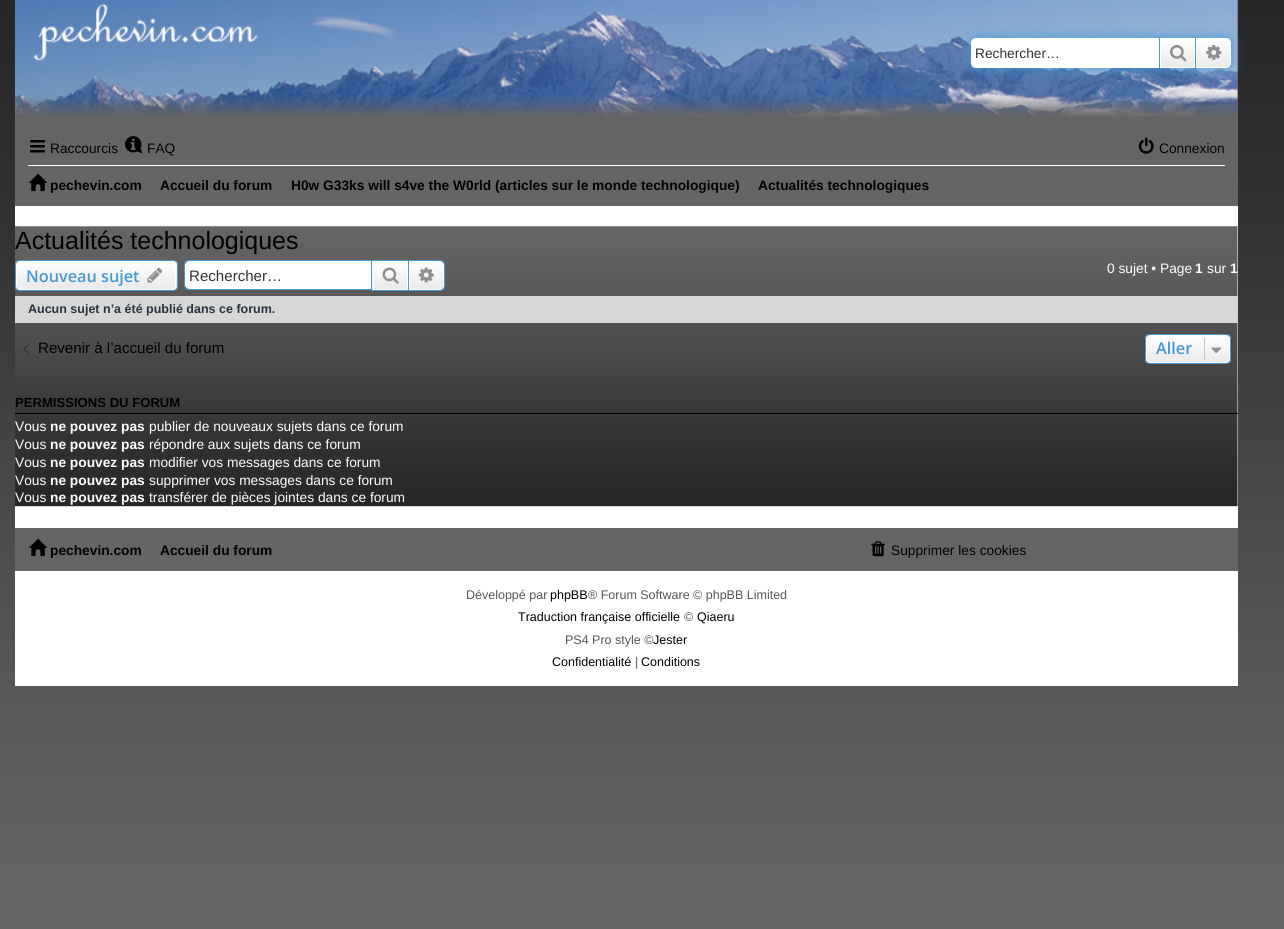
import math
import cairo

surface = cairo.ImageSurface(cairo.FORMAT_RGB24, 1284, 929)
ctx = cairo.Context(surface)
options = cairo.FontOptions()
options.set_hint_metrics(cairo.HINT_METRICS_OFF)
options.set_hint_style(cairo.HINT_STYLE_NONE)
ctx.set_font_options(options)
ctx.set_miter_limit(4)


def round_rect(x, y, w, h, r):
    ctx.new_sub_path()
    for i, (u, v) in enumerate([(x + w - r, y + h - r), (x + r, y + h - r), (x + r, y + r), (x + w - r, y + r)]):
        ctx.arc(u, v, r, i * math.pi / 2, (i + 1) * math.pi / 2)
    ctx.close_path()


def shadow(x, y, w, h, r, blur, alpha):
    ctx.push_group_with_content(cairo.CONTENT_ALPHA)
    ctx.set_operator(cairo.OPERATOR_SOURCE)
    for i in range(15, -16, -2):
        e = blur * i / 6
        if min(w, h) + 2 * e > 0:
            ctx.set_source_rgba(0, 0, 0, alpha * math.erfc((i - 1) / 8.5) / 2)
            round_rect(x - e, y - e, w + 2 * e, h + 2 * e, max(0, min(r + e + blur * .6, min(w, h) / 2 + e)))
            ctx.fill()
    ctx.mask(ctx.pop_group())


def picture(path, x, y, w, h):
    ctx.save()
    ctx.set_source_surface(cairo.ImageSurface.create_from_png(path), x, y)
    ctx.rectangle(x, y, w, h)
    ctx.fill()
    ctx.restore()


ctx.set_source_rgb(1, 1, 1)
ctx.paint()
picture("img1.png", 0, 700, 1284, 229)
picture("img2.png", 0, 0, 1284, 700)
ctx.set_source_rgb(1, 1, 1)
ctx.rectangle(15, 206, 1223, 480)
ctx.fill()
ctx.set_source_rgb(0.396, 0.396, 0.396)
ctx.rectangle(15, 0, 1223, 206)
ctx.fill()
picture("img3.png", 15, 0, 1223, 117)
ctx.set_source_rgb(0.267, 0.596, 0.831)
shadow(971, 38, 260, 30, 5, 6, 1)
ctx.set_source_rgb(1, 1, 1)
ctx.new_path()
ctx.move_to(976, 38)
ctx.line_to(1159, 38)
ctx.line_to(1159, 68)
ctx.line_to(976, 68)
ctx.curve_to(973, 68, 971, 66, 971, 63)
ctx.line_to(971, 43)
ctx.curve_to(971, 40, 973, 38, 976, 38)
ctx.close_path()
ctx.fill()
ctx.select_font_face("Liberation Sans")
ctx.set_font_size(13.75)
ctx.set_source_rgb(0.2, 0.2, 0.2)
ctx.move_to(975, 58)
ctx.show_text("Rechercher…")
gradient = cairo.LinearGradient(1178, 38, 1178, 68)
gradient.add_color_stop_rgba(0, 1, 1, 1, 1)
gradient.add_color_stop_rgba(1, 0.914, 0.914, 0.914, 1)
ctx.set_source(gradient)
ctx.rectangle(1161, 39, 33, 28)
ctx.fill()
ctx.rectangle(1160.5, 38.5, 34, 29)
ctx.set_source_rgb(1, 1, 1)
ctx.set_line_width(1)
ctx.stroke()
ctx.set_source_rgb(0.267, 0.596, 0.831)
ctx.rectangle(1195, 38, 1, 30)
ctx.fill()
ctx.rectangle(1159, 38, 1, 30)
ctx.fill()
picture("img4.png", 1170, 45, 17, 17)
gradient = cairo.LinearGradient(1214, 38, 1214, 68)
gradient.add_color_stop_rgba(0, 1, 1, 1, 1)
gradient.add_color_stop_rgba(1, 0.914, 0.914, 0.914, 1)
ctx.set_source(gradient)
ctx.new_path()
ctx.move_to(1196.5, 38.5)
ctx.line_to(1226, 38.5)
ctx.curve_to(1228.5, 38.5, 1230.5, 40.5, 1230.5, 43)
ctx.line_to(1230.5, 63)
ctx.curve_to(1230.5, 65.5, 1228.5, 67.5, 1226, 67.5)
ctx.line_to(1196.5, 67.5)
ctx.close_path()
ctx.fill_preserve()
ctx.set_source_rgb(1, 1, 1)
ctx.stroke()
picture("img5.png", 1206, 45, 16, 15)
picture("img6.png", 30, 140, 15, 13)
ctx.set_source_rgb(0, 0, 0)
ctx.move_to(50, 153)
ctx.show_text("Raccourcis")
picture("img7.png", 125, 136, 18, 18)
ctx.move_to(147, 153)
ctx.show_text("FAQ")
picture("img8.png", 1138, 137, 16, 17)
ctx.move_to(1159, 153)
ctx.show_text("Connexion")
ctx.set_source_rgb(1, 1, 1)
ctx.rectangle(28, 165, 1197, 1)
ctx.fill()
picture("img9.png", 29, 173, 19, 19)
ctx.select_font_face("Liberation Sans", cairo.FONT_SLANT_NORMAL, cairo.FONT_WEIGHT_BOLD)
ctx.set_source_rgb(0, 0, 0)
ctx.move_to(50, 190)
ctx.show_text("pechevin.com")
ctx.move_to(160, 190)
ctx.show_text("Accueil du forum")
ctx.move_to(291, 190)
ctx.show_text("H0w G33ks will s4ve the W0rld (articles sur le monde technologique)")
ctx.move_to(758, 190)
ctx.show_text("Actualités technologiques")
picture("img10.png", 15, 226, 1223, 281)
ctx.select_font_face("Liberation Sans")
ctx.set_font_size(25)
ctx.move_to(15, 249)
ctx.show_text("Actualités technologiques")
ctx.save()
round_rect(15, 260, 163, 31, 5)
ctx.clip()
gradient = cairo.LinearGradient(96, 261, 96, 290)
gradient.add_color_stop_rgba(0, 1, 1, 1, 1)
gradient.add_color_stop_rgba(1, 0.914, 0.914, 0.914, 1)
ctx.set_source(gradient)
ctx.rectangle(15, 261, 163, 29)
ctx.fill()
ctx.restore()
round_rect(16.5, 261.5, 159, 28, 3.5)
ctx.set_source_rgb(1, 1, 1)
ctx.stroke()
round_rect(15.5, 260.5, 162, 30, 4.5)
ctx.set_source_rgb(0.267, 0.596, 0.831)
ctx.stroke()
ctx.select_font_face("Open Sans SemiBold")
ctx.set_font_size(16.25)
ctx.move_to(26, 282)
ctx.show_text("Nouveau sujet")
picture("img11.png", 147, 267, 16, 16)
ctx.set_source_rgb(1, 1, 1)
ctx.new_path()
ctx.move_to(189, 261)
ctx.line_to(371, 261)
ctx.line_to(371, 289)
ctx.line_to(189, 289)
ctx.curve_to(187, 289, 185, 287, 185, 285)
ctx.line_to(185, 265)
ctx.curve_to(185, 263, 187, 261, 189, 261)
ctx.close_path()
ctx.fill()
ctx.set_source_rgb(0.267, 0.596, 0.831)
ctx.set_fill_rule(cairo.FILL_RULE_EVEN_ODD)
ctx.new_path()
ctx.move_to(189, 260)
ctx.line_to(371, 260)
ctx.line_to(371, 290)
ctx.line_to(189, 290)
ctx.curve_to(186, 290, 184, 288, 184, 285)
ctx.line_to(184, 265)
ctx.curve_to(184, 262, 186, 260, 189, 260)
ctx.close_path()
ctx.move_to(189, 261)
ctx.line_to(371, 261)
ctx.line_to(371, 289)
ctx.line_to(189, 289)
ctx.curve_to(187, 289, 185, 287, 185, 285)
ctx.line_to(185, 265)
ctx.curve_to(185, 263, 187, 261, 189, 261)
ctx.close_path()
ctx.fill()
ctx.select_font_face("Liberation Sans")
ctx.set_font_size(15.1)
ctx.set_source_rgb(0.2, 0.2, 0.2)
ctx.move_to(189, 281)
ctx.show_text("Rechercher…")
gradient = cairo.LinearGradient(390, 261, 390, 290)
gradient.add_color_stop_rgba(0, 1, 1, 1, 1)
gradient.add_color_stop_rgba(1, 0.914, 0.914, 0.914, 1)
ctx.set_source(gradient)
ctx.rectangle(372, 261, 35, 29)
ctx.fill()
ctx.rectangle(373.5, 261.5, 34, 28)
ctx.set_source_rgb(1, 1, 1)
ctx.stroke()
ctx.rectangle(371.5, 260.5, 37, 30)
ctx.set_source_rgb(0.267, 0.596, 0.831)
ctx.stroke()
picture("img12.png", 382, 267, 17, 17)
gradient = cairo.LinearGradient(426, 261, 426, 290)
gradient.add_color_stop_rgba(0, 1, 1, 1, 1)
gradient.add_color_stop_rgba(1, 0.914, 0.914, 0.914, 1)
ctx.set_source(gradient)
ctx.new_path()
ctx.move_to(409.5, 261.5)
ctx.line_to(440, 261.5)
ctx.curve_to(442, 261.5, 443.5, 263, 443.5, 265)
ctx.line_to(443.5, 286)
ctx.curve_to(443.5, 288, 442, 289.5, 440, 289.5)
ctx.line_to(409.5, 289.5)
ctx.close_path()
ctx.fill_preserve()
ctx.set_source_rgb(1, 1, 1)
ctx.stroke()
ctx.set_source_rgb(0.267, 0.596, 0.831)
ctx.new_path()
ctx.move_to(409, 260)
ctx.line_to(440, 260)
ctx.curve_to(443, 260, 445, 262, 445, 265)
ctx.line_to(445, 286)
ctx.curve_to(445, 289, 443, 291, 440, 291)
ctx.line_to(409, 291)
ctx.close_path()
ctx.move_to(409, 261)
ctx.line_to(440, 261)
ctx.curve_to(442, 261, 444, 263, 444, 265)
ctx.line_to(444, 286)
ctx.curve_to(444, 288.5, 442, 290, 440, 290)
ctx.line_to(409, 290)
ctx.close_path()
ctx.fill()
picture("img13.png", 418, 267, 16, 16)
ctx.set_font_size(13.75)
ctx.set_source_rgb(1, 1, 1)
ctx.move_to(1107, 273)
ctx.show_text("0 sujet • Page")
ctx.select_font_face("Liberation Sans", cairo.FONT_SLANT_NORMAL, cairo.FONT_WEIGHT_BOLD)
ctx.move_to(1195, 273)
ctx.show_text("1")
ctx.select_font_face("Liberation Sans")
ctx.move_to(1207, 273)
ctx.show_text("sur")
ctx.select_font_face("Liberation Sans", cairo.FONT_SLANT_NORMAL, cairo.FONT_WEIGHT_BOLD)
ctx.move_to(1230, 273)
ctx.show_text("1")
ctx.set_source_rgb(0.843, 0.843, 0.843)
ctx.rectangle(15, 296, 1223, 27)
ctx.fill()
ctx.set_font_size(12.5)
ctx.set_source_rgb(0.157, 0.192, 0.247)
ctx.move_to(28, 313)
ctx.show_text("Aucun sujet n’a été publié dans ce forum.")
picture("img14.png", 23, 344, 6, 10)
ctx.select_font_face("Liberation Sans")
ctx.set_font_size(15.1)
ctx.set_source_rgb(0, 0, 0)
ctx.move_to(38, 353)
ctx.show_text("Revenir à l’accueil du forum")
ctx.save()
ctx.set_fill_rule(cairo.FILL_RULE_WINDING)
round_rect(1145, 334, 86, 30, 5)
ctx.clip()
gradient = cairo.LinearGradient(1188, 335, 1188, 363)
gradient.add_color_stop_rgba(0, 1, 1, 1, 1)
gradient.add_color_stop_rgba(1, 0.914, 0.914, 0.914, 1)
ctx.set_source(gradient)
ctx.rectangle(1145, 335, 86, 28)
ctx.fill()
ctx.restore()
round_rect(1146.5, 335.5, 83, 27, 3.5)
ctx.set_source_rgb(1, 1, 1)
ctx.stroke()
round_rect(1145.5, 334.5, 85, 29, 4.5)
ctx.set_source_rgb(0.267, 0.596, 0.831)
ctx.stroke()
ctx.select_font_face("Open Sans SemiBold")
ctx.set_font_size(16.25)
ctx.move_to(1156, 354)
ctx.show_text("Aller")
ctx.set_source_rgb(0.78, 0.765, 0.749)
ctx.rectangle(1204, 338, 1, 22)
ctx.fill()
picture("img15.png", 1211, 347, 11, 6)
ctx.set_source_rgb(0, 0, 0)
ctx.rectangle(15, 413, 1223, 1)
ctx.fill()
ctx.select_font_face("Liberation Sans", cairo.FONT_SLANT_NORMAL, cairo.FONT_WEIGHT_BOLD)
ctx.set_font_size(13.1)
ctx.move_to(15, 407)
ctx.show_text("PERMISSIONS DU FORUM")
ctx.select_font_face("Liberation Sans")
ctx.set_font_size(13.75)
ctx.set_source_rgb(1, 1, 1)
ctx.move_to(15, 431)
ctx.show_text("Vous")
ctx.select_font_face("Liberation Sans", cairo.FONT_SLANT_NORMAL, cairo.FONT_WEIGHT_BOLD)
ctx.move_to(50, 431)
ctx.show_text("ne pouvez pas")
ctx.select_font_face("Liberation Sans")
ctx.move_to(149, 431)
ctx.show_text("publier de nouveaux sujets dans ce forum")
ctx.move_to(15, 449)
ctx.show_text("Vous")
ctx.select_font_face("Liberation Sans", cairo.FONT_SLANT_NORMAL, cairo.FONT_WEIGHT_BOLD)
ctx.move_to(50, 449)
ctx.show_text("ne pouvez pas")
ctx.select_font_face("Liberation Sans")
ctx.move_to(149, 449)
ctx.show_text("répondre aux sujets dans ce forum")
ctx.move_to(15, 467)
ctx.show_text("Vous")
ctx.select_font_face("Liberation Sans", cairo.FONT_SLANT_NORMAL, cairo.FONT_WEIGHT_BOLD)
ctx.move_to(50, 467)
ctx.show_text("ne pouvez pas")
ctx.select_font_face("Liberation Sans")
ctx.move_to(149, 467)
ctx.show_text("modifier vos messages dans ce forum")
ctx.move_to(15, 485)
ctx.show_text("Vous")
ctx.select_font_face("Liberation Sans", cairo.FONT_SLANT_NORMAL, cairo.FONT_WEIGHT_BOLD)
ctx.move_to(50, 485)
ctx.show_text("ne pouvez pas")
ctx.select_font_face("Liberation Sans")
ctx.move_to(149, 485)
ctx.show_text("supprimer vos messages dans ce forum")
ctx.move_to(15, 502)
ctx.show_text("Vous")
ctx.select_font_face("Liberation Sans", cairo.FONT_SLANT_NORMAL, cairo.FONT_WEIGHT_BOLD)
ctx.move_to(50, 502)
ctx.show_text("ne pouvez pas")
ctx.select_font_face("Liberation Sans")
ctx.move_to(149, 502)
ctx.show_text("transférer de pièces jointes dans ce forum")
ctx.set_source_rgb(0.396, 0.396, 0.396)
ctx.rectangle(15, 528, 1223, 43)
ctx.fill()
picture("img9.png", 29, 538, 19, 19)
ctx.select_font_face("Liberation Sans", cairo.FONT_SLANT_NORMAL, cairo.FONT_WEIGHT_BOLD)
ctx.set_source_rgb(0, 0, 0)
ctx.move_to(50, 555)
ctx.show_text("pechevin.com")
ctx.move_to(160, 555)
ctx.show_text("Accueil du forum")
picture("img16.png", 871, 541, 14, 16)
ctx.select_font_face("Liberation Sans")
ctx.move_to(891, 555)
ctx.show_text("Supprimer les cookies")
ctx.set_font_size(12.5)
ctx.set_source_rgb(0.333, 0.333, 0.333)
ctx.move_to(466, 599)
ctx.show_text("Développé par")
ctx.set_source_rgb(0, 0, 0)
ctx.move_to(550, 599)
ctx.show_text("phpBB")
ctx.set_source_rgb(0.333, 0.333, 0.333)
ctx.move_to(588, 599)
ctx.show_text("® Forum Software © phpBB Limited")
ctx.set_source_rgb(0, 0, 0)
ctx.move_to(518, 621)
ctx.show_text("Traduction française officielle")
ctx.set_source_rgb(0.333, 0.333, 0.333)
ctx.move_to(684, 621)
ctx.show_text("©")
ctx.set_source_rgb(0, 0, 0)
ctx.move_to(697, 621)
ctx.show_text("Qiaeru")
ctx.set_source_rgb(0.333, 0.333, 0.333)
ctx.move_to(565, 644)
ctx.show_text("PS4 Pro style ©")
ctx.set_source_rgb(0, 0, 0)
ctx.move_to(653, 644)
ctx.show_text("Jester")
ctx.move_to(552, 666)
ctx.show_text("Confidentialité")
ctx.set_source_rgb(0.333, 0.333, 0.333)
ctx.move_to(635, 666)
ctx.show_text("|")
ctx.set_source_rgb(0, 0, 0)
ctx.move_to(641, 666)
ctx.show_text("Conditions")
surface.write_to_png("page.png")
